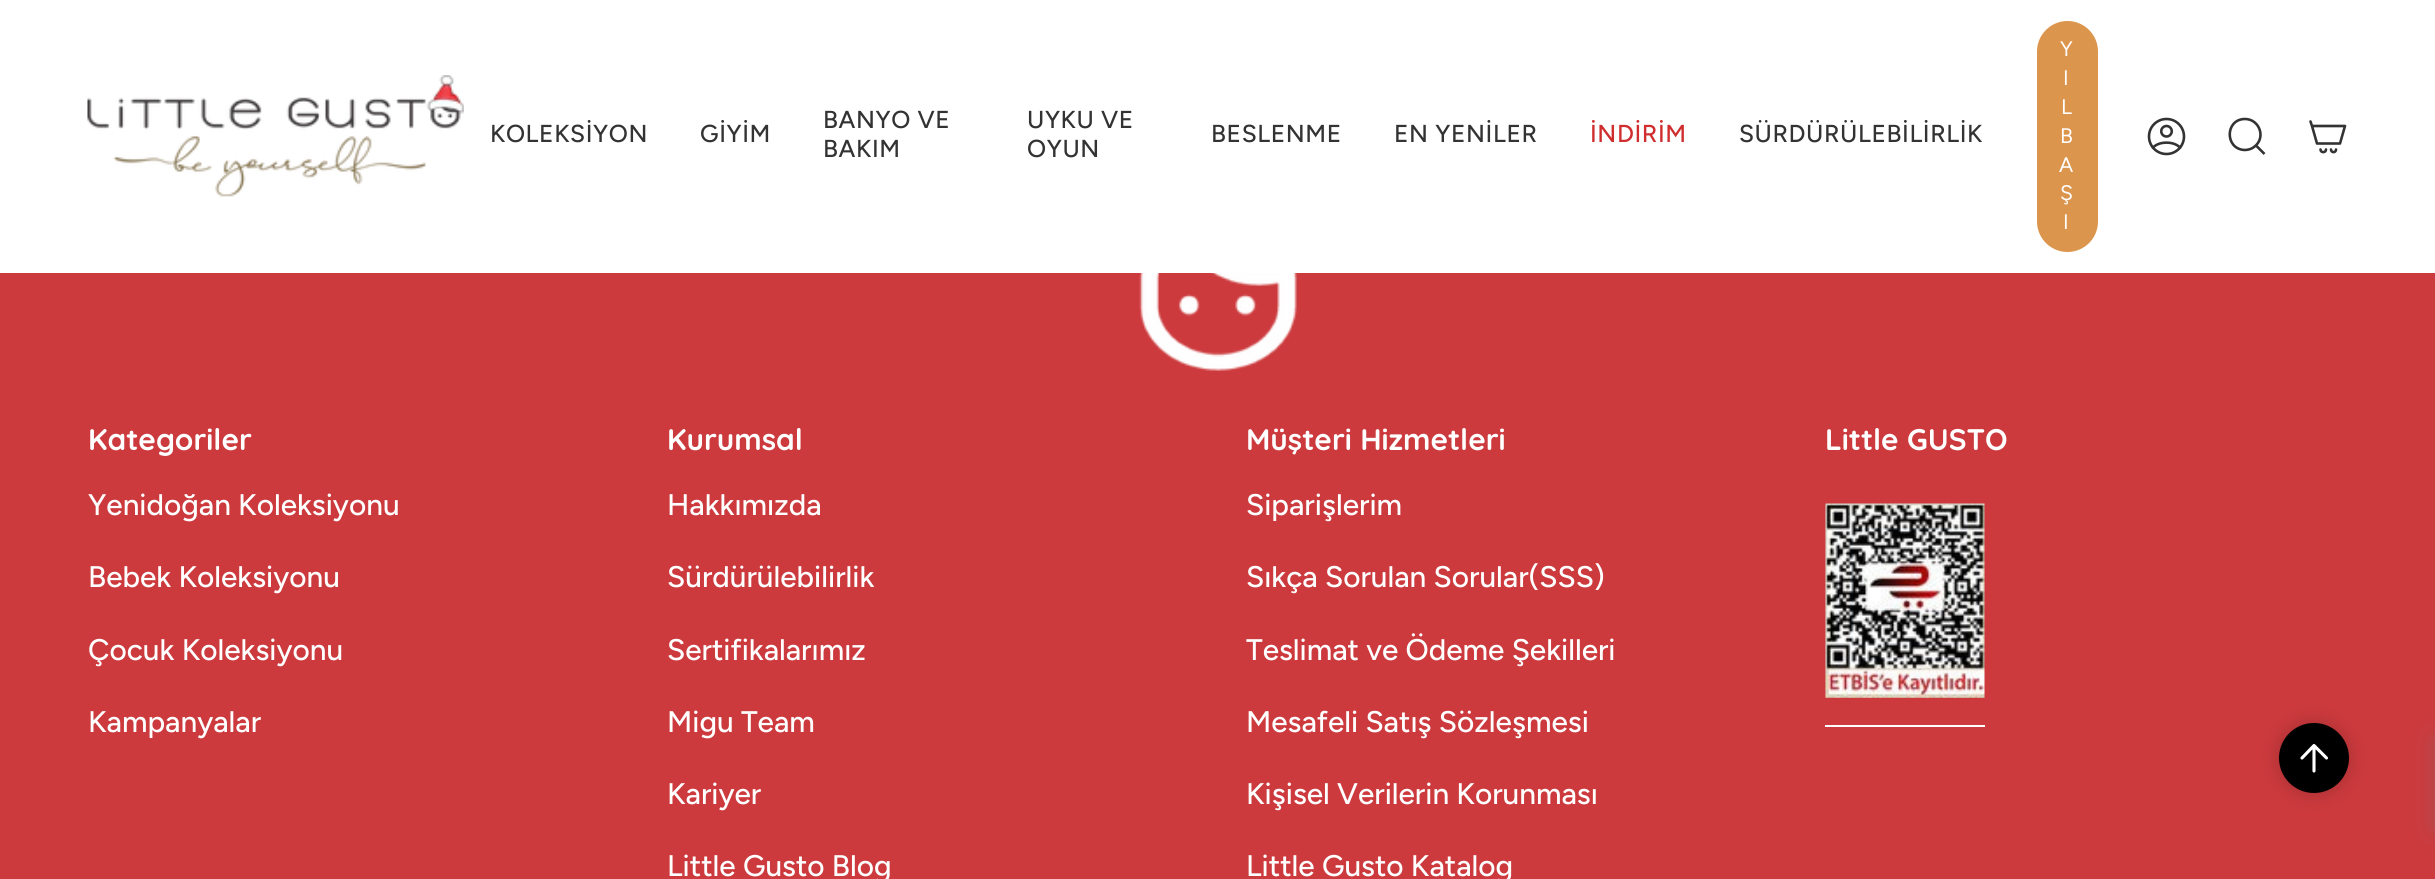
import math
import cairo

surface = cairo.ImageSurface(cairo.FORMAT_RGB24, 2435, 879)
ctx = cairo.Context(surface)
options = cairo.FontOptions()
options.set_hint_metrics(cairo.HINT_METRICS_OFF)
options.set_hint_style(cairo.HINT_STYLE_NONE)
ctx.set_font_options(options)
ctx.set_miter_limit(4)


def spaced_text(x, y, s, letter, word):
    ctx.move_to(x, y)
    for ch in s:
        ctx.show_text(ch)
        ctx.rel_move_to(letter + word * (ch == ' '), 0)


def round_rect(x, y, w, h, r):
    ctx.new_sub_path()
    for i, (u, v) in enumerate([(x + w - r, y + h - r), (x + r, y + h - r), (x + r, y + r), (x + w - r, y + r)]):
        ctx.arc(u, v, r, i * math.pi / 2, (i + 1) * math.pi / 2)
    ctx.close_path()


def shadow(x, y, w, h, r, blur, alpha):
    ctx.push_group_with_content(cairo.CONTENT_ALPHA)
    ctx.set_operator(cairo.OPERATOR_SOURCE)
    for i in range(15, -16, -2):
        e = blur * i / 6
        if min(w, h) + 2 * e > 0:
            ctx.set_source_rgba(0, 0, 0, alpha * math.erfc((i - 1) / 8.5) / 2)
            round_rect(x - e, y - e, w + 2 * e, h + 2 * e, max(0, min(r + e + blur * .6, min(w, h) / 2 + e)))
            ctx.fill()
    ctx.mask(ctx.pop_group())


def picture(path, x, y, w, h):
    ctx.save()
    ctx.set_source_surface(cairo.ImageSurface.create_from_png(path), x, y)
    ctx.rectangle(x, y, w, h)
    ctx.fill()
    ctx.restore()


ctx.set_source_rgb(0.8, 0.227, 0.239)
ctx.paint()
ctx.set_source_rgb(1, 1, 1)
ctx.rectangle(0, 0, 2435, 273)
ctx.fill()
picture("img1.png", 87, 75, 377, 122)
ctx.select_font_face("Figtree Medium")
ctx.set_font_size(24.5)
ctx.set_source_rgb(0.2, 0.2, 0.2)
spaced_text(490, 142, "KOLEKSİYON", 0.6, 0)
spaced_text(700, 142, "GİYİM", 0.6, 0)
spaced_text(823, 128, "BANYO VE", 0.6, 0)
spaced_text(823, 157, "BAKIM", 0.6, 0)
spaced_text(1027, 128, "UYKU VE", 0.6, 0)
spaced_text(1027, 157, "OYUN", 0.6, 0)
spaced_text(1211, 142, "BESLENME", 0.6, 0)
spaced_text(1394, 142, "EN YENİLER", 0.6, 0)
ctx.set_source_rgb(0.816, 0.18, 0.18)
spaced_text(1590, 142, "İNDİRİM", 0.6, 0)
ctx.set_source_rgb(0.2, 0.2, 0.2)
spaced_text(1739, 142, "SÜRDÜRÜLEBİLİRLİK", 0.6, 0)
ctx.set_source_rgb(0.863, 0.584, 0.302)
round_rect(2038, 22, 59, 229, 29.5)
ctx.fill_preserve()
ctx.stroke()
ctx.select_font_face("Figtree")
ctx.set_font_size(21)
ctx.set_source_rgb(1, 1, 1)
spaced_text(2060, 56, "Y", 2, 0)
spaced_text(2063, 85, "I", 2, 0)
spaced_text(2061, 114, "L", 2, 0)
spaced_text(2060, 143, "B", 2, 0)
spaced_text(2059, 172, "A", 2, 0)
spaced_text(2060, 200, "Ş", 2, 0)
spaced_text(2063, 229, "I", 2, 0)
picture("img2.png", 2147, 117, 39, 39)
ctx.new_path()
ctx.move_to(2245, 119)
ctx.curve_to(2259.5, 119, 2266.5, 138, 2254, 147)
ctx.curve_to(2251.5, 149, 2248, 150, 2244.5, 150)
ctx.curve_to(2224.5, 149, 2225, 119, 2245, 119)
ctx.close_path()
ctx.move_to(2256, 145.5)
ctx.line_to(2264.5, 154)
ctx.set_source_rgb(0.2, 0.2, 0.2)
ctx.set_line_width(2.6)
ctx.stroke()
ctx.new_path()
ctx.move_to(2312, 126)
ctx.line_to(2345, 126)
ctx.line_to(2340, 143.5)
ctx.line_to(2317, 143.5)
ctx.close_path()
ctx.move_to(2312, 126)
ctx.line_to(2310.5, 121.5)
ctx.move_to(2326, 149.5)
ctx.curve_to(2326, 153, 2320.5, 153, 2320.5, 149.5)
ctx.move_to(2336, 149.5)
ctx.curve_to(2336, 153, 2331, 153, 2331, 149.5)
ctx.set_line_cap(cairo.LINE_CAP_ROUND)
ctx.set_line_join(cairo.LINE_JOIN_ROUND)
ctx.stroke()
picture("img3.png", 1139, 273, 158, 98)
ctx.select_font_face("Quicksand", cairo.FONT_SLANT_NORMAL, cairo.FONT_WEIGHT_BOLD)
ctx.set_font_size(29.75)
ctx.set_source_rgb(1, 1, 1)
ctx.move_to(88, 450)
ctx.show_text("Kategoriler")
ctx.select_font_face("Figtree Medium")
ctx.move_to(88, 515)
ctx.show_text("Yenidoğan Koleksiyonu")
ctx.move_to(88, 587)
ctx.show_text("Bebek Koleksiyonu")
ctx.move_to(88, 660)
ctx.show_text("Çocuk Koleksiyonu")
ctx.move_to(88, 732)
ctx.show_text("Kampanyalar")
ctx.select_font_face("Quicksand", cairo.FONT_SLANT_NORMAL, cairo.FONT_WEIGHT_BOLD)
ctx.move_to(667, 450)
ctx.show_text("Kurumsal")
ctx.select_font_face("Figtree Medium")
ctx.move_to(667, 515)
ctx.show_text("Hakkımızda")
ctx.move_to(667, 587)
ctx.show_text("Sürdürülebilirlik")
ctx.move_to(667, 660)
ctx.show_text("Sertifikalarımız")
ctx.move_to(667, 732)
ctx.show_text("Migu Team")
ctx.move_to(667, 804)
ctx.show_text("Kariyer")
ctx.move_to(667, 876)
ctx.show_text("Little Gusto Blog")
ctx.select_font_face("Quicksand", cairo.FONT_SLANT_NORMAL, cairo.FONT_WEIGHT_BOLD)
ctx.move_to(1246, 450)
ctx.show_text("Müşteri Hizmetleri")
ctx.select_font_face("Figtree Medium")
ctx.move_to(1246, 515)
ctx.show_text("Siparişlerim")
ctx.move_to(1246, 587)
ctx.show_text("Sıkça Sorulan Sorular(SSS)")
ctx.move_to(1246, 660)
ctx.show_text("Teslimat ve Ödeme Şekilleri")
ctx.move_to(1246, 732)
ctx.show_text("Mesafeli Satış Sözleşmesi")
ctx.move_to(1246, 804)
ctx.show_text("Kişisel Verilerin Korunması")
ctx.move_to(1246, 876)
ctx.show_text("Little Gusto Katalog")
ctx.select_font_face("Quicksand", cairo.FONT_SLANT_NORMAL, cairo.FONT_WEIGHT_BOLD)
ctx.move_to(1825, 450)
ctx.show_text("Little GUSTO")
picture("img4.png", 1825, 503, 160, 195)
ctx.rectangle(1825, 725, 160, 2)
ctx.fill()
ctx.set_source_rgb(0, 0, 0)
shadow(2279, 723, 70, 70, 35, 9, 0.2)
ctx.set_source_rgb(0, 0, 0)
ctx.arc(2314, 758, 34, 0, 2 * math.pi)
ctx.fill_preserve()
ctx.set_line_width(2)
ctx.set_line_cap(cairo.LINE_CAP_BUTT)
ctx.set_line_join(cairo.LINE_JOIN_MITER)
ctx.stroke()
ctx.new_path()
ctx.move_to(2314, 771)
ctx.line_to(2314, 745.5)
ctx.move_to(2314, 745.5)
ctx.line_to(2326.5, 758)
ctx.move_to(2314, 745.5)
ctx.line_to(2302, 758)
ctx.set_source_rgb(1, 1, 1)
ctx.set_line_width(3.1)
ctx.set_line_cap(cairo.LINE_CAP_ROUND)
ctx.set_line_join(cairo.LINE_JOIN_ROUND)
ctx.stroke()
ctx.set_source_rgb(0.459, 0.459, 0.459)
shadow(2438, 740, 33, 88, 0, 12, 0.5)
surface.write_to_png("page.png")
